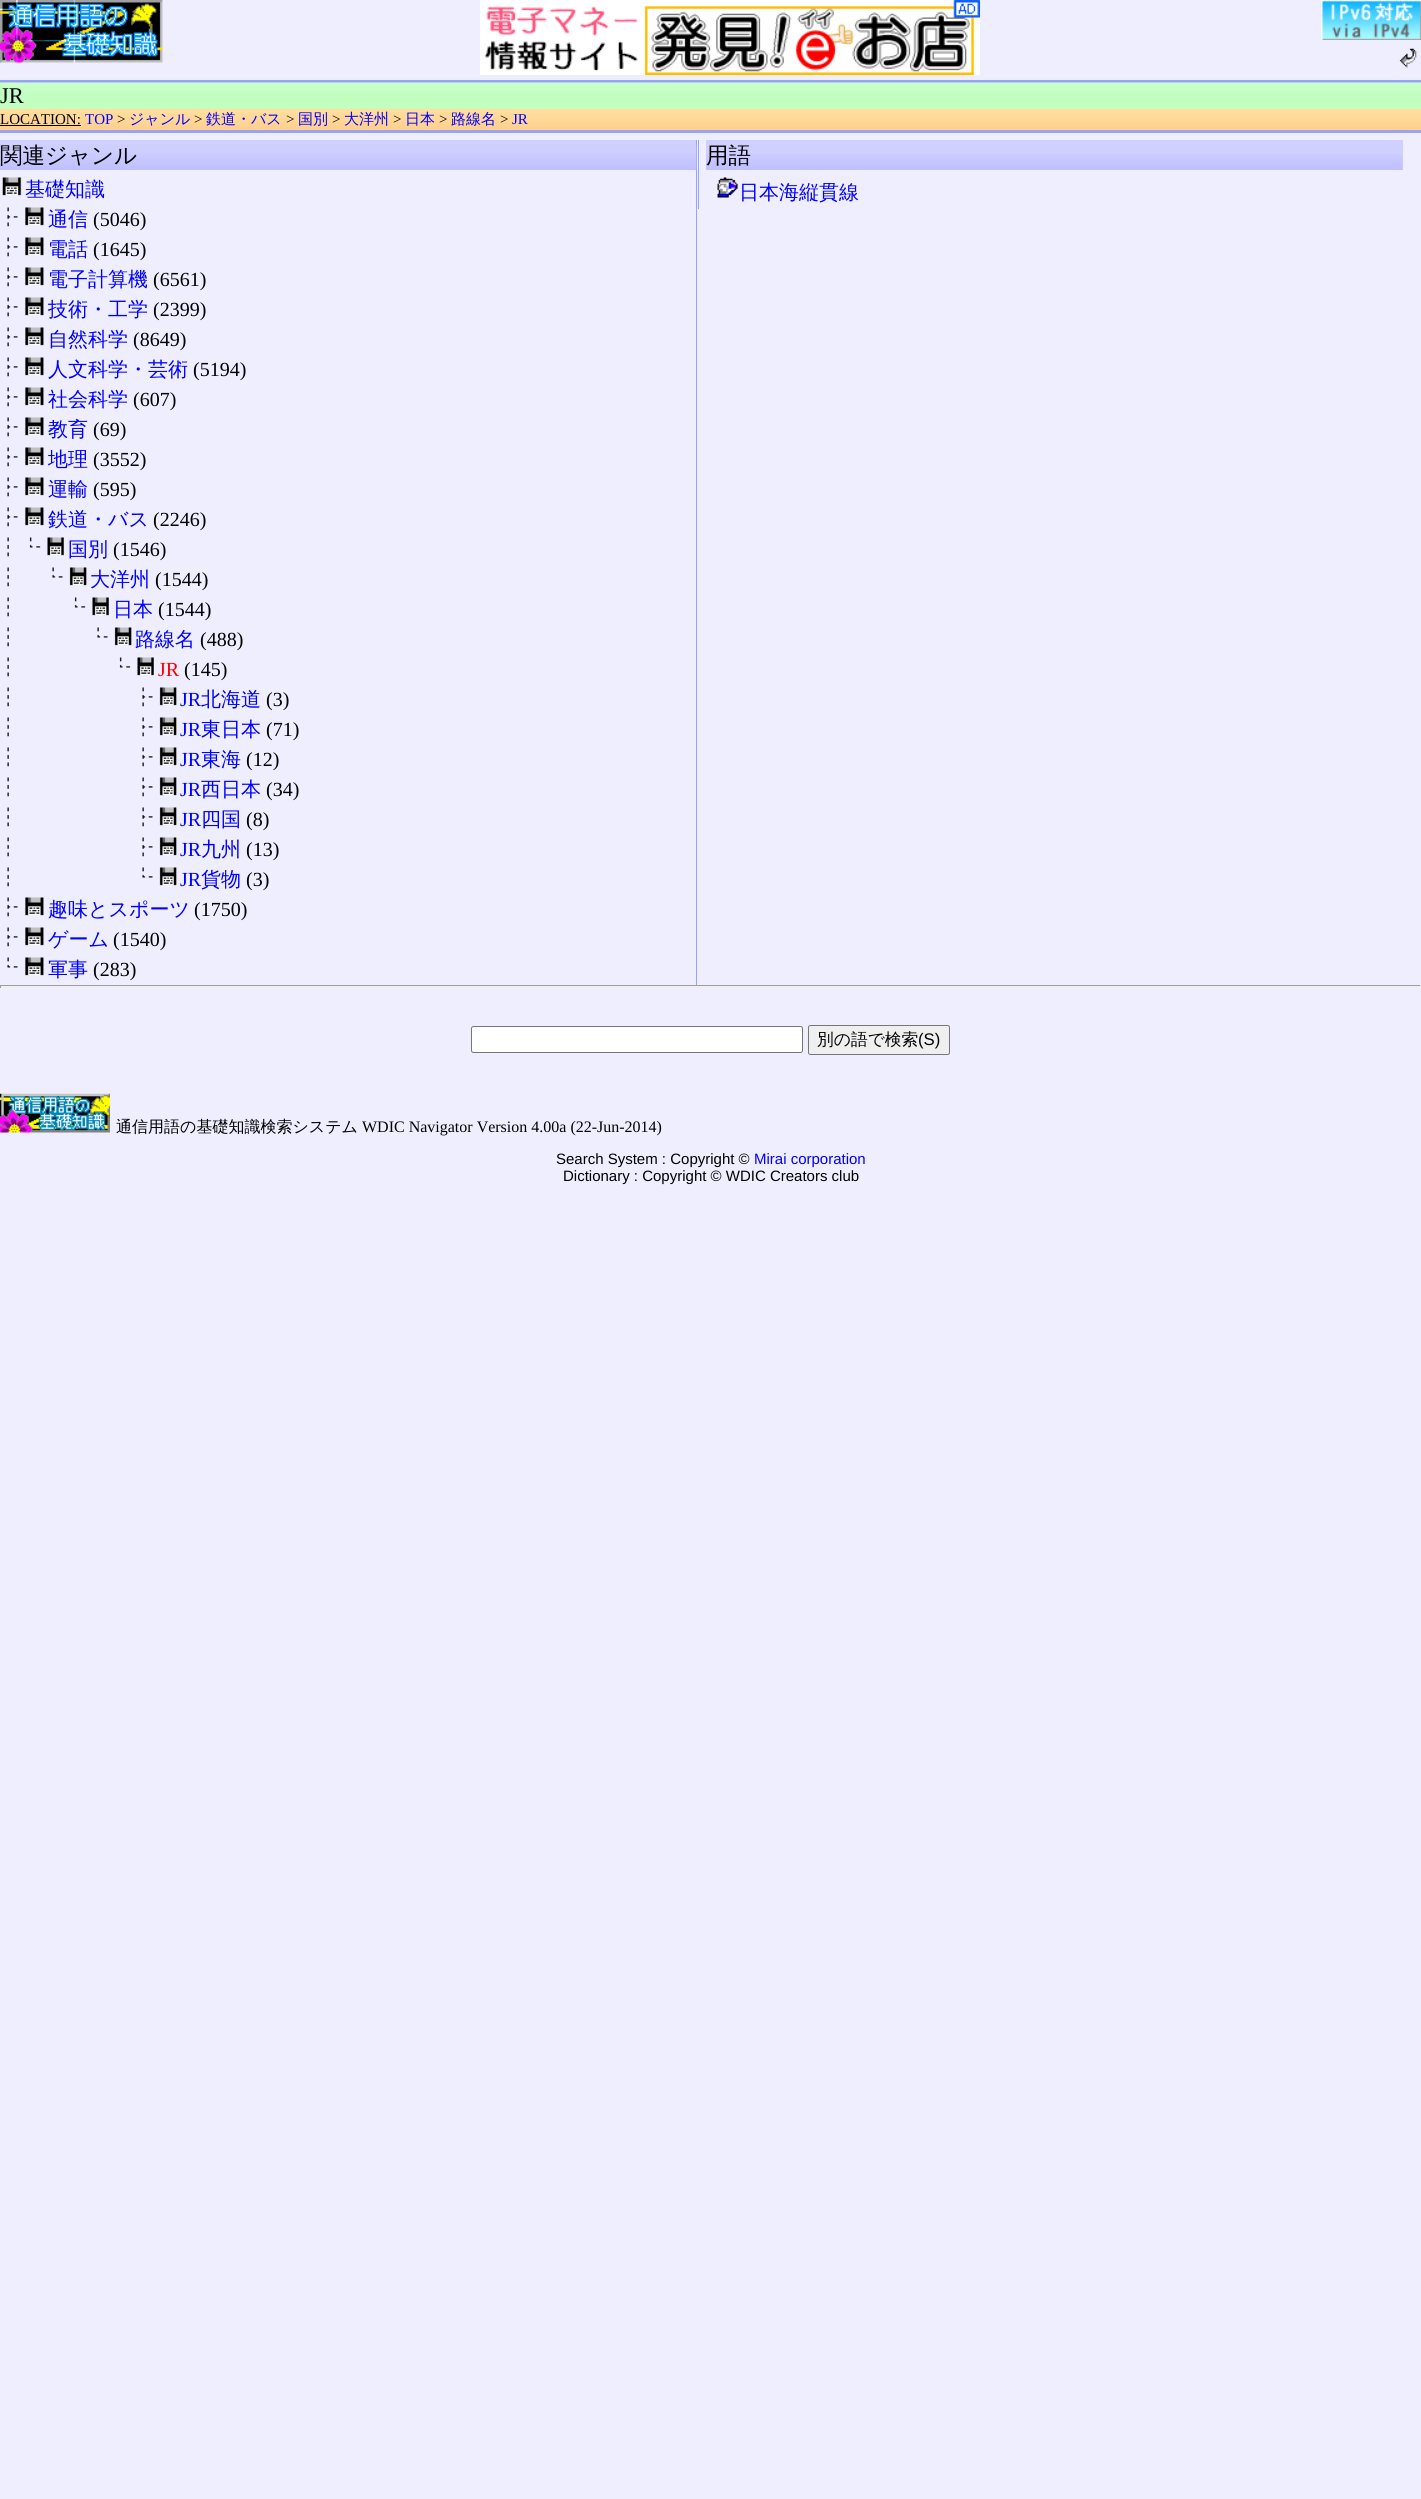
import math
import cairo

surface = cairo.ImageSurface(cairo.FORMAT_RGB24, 1421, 2499)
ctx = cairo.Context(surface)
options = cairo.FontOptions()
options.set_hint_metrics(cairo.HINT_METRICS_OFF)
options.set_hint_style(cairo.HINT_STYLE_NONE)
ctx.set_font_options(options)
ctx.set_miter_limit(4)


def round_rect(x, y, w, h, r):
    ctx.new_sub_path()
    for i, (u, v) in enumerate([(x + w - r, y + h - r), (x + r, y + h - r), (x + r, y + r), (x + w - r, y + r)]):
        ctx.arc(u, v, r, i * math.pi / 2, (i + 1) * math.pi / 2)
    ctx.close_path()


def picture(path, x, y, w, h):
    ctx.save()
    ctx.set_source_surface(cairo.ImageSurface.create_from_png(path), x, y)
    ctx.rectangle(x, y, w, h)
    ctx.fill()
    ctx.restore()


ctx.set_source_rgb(0.933, 0.933, 1)
ctx.paint()
picture("img1.png", 0, 0, 163, 63)
picture("img2.png", 480, 0, 500, 75)
picture("img3.png", 1321, 0, 100, 40)
picture("img4.png", 1399, 48, 18, 20)
picture("img5.png", 0, 108, 1421, 22)
ctx.set_source_rgb(0.584, 0.643, 0.969)
ctx.rectangle(0, 80, 1421, 3)
ctx.fill()
ctx.rectangle(0, 130, 1421, 3)
ctx.fill()
picture("img6.png", 0, 82, 1421, 27)
ctx.select_font_face("Liberation Serif")
ctx.set_font_size(22.5)
ctx.set_source_rgb(0, 0, 0)
ctx.move_to(0, 103)
ctx.show_text("JR")
ctx.set_font_size(15)
ctx.move_to(0, 124)
ctx.show_text("LOCATION:")
ctx.rectangle(0, 125, 81, 1)
ctx.fill()
ctx.set_source_rgb(0, 0, 1)
ctx.move_to(85, 124)
ctx.show_text("TOP")
ctx.set_source_rgb(0, 0, 0)
ctx.move_to(117, 124)
ctx.show_text(">")
ctx.select_font_face("WenQuanYi Zen Hei Medium")
ctx.set_source_rgb(0, 0, 1)
ctx.move_to(129, 124)
ctx.show_text("ジャンル")
ctx.select_font_face("Liberation Serif")
ctx.set_source_rgb(0, 0, 0)
ctx.move_to(194, 124)
ctx.show_text(">")
ctx.select_font_face("WenQuanYi Zen Hei Medium")
ctx.set_source_rgb(0, 0, 1)
ctx.move_to(206, 124)
ctx.show_text("鉄道・バス")
ctx.select_font_face("Liberation Serif")
ctx.set_source_rgb(0, 0, 0)
ctx.move_to(286, 124)
ctx.show_text(">")
ctx.select_font_face("WenQuanYi Zen Hei Medium")
ctx.set_source_rgb(0, 0, 1)
ctx.move_to(298, 124)
ctx.show_text("国別")
ctx.select_font_face("Liberation Serif")
ctx.set_source_rgb(0, 0, 0)
ctx.move_to(332, 124)
ctx.show_text(">")
ctx.select_font_face("WenQuanYi Zen Hei Medium")
ctx.set_source_rgb(0, 0, 1)
ctx.move_to(344, 124)
ctx.show_text("大洋州")
ctx.select_font_face("Liberation Serif")
ctx.set_source_rgb(0, 0, 0)
ctx.move_to(393, 124)
ctx.show_text(">")
ctx.select_font_face("WenQuanYi Zen Hei Medium")
ctx.set_source_rgb(0, 0, 1)
ctx.move_to(405, 124)
ctx.show_text("日本")
ctx.select_font_face("Liberation Serif")
ctx.set_source_rgb(0, 0, 0)
ctx.move_to(439, 124)
ctx.show_text(">")
ctx.select_font_face("WenQuanYi Zen Hei Medium")
ctx.set_source_rgb(0, 0, 1)
ctx.move_to(451, 124)
ctx.show_text("路線名")
ctx.select_font_face("Liberation Serif")
ctx.set_source_rgb(0, 0, 0)
ctx.move_to(500, 124)
ctx.show_text(">")
ctx.set_source_rgb(0, 0, 1)
ctx.move_to(512, 124)
ctx.show_text("JR")
ctx.set_source_rgb(0.584, 0.643, 0.969)
ctx.rectangle(696, 140, 1, 845)
ctx.fill()
ctx.set_source_rgb(0.816, 0.816, 1)
ctx.rectangle(0, 140, 696, 5)
ctx.fill()
picture("img7.png", 0, 145, 697, 25)
ctx.select_font_face("WenQuanYi Zen Hei Medium")
ctx.set_font_size(22.5)
ctx.set_source_rgb(0, 0, 0)
ctx.move_to(0, 163)
ctx.show_text("関連ジャンル")
picture("img8.png", 2, 177, 20, 19)
ctx.set_font_size(20)
ctx.set_source_rgb(0, 0, 1)
ctx.move_to(25, 196)
ctx.show_text("基礎知識")
picture("img9.png", 7, 207, 11, 20)
picture("img10.png", 25, 207, 19, 19)
ctx.move_to(48, 226)
ctx.show_text("通信")
ctx.select_font_face("Liberation Serif")
ctx.set_source_rgb(0, 0, 0)
ctx.move_to(93, 226)
ctx.show_text("(5046)")
picture("img9.png", 7, 237, 11, 20)
picture("img10.png", 25, 237, 19, 19)
ctx.select_font_face("WenQuanYi Zen Hei Medium")
ctx.set_source_rgb(0, 0, 1)
ctx.move_to(48, 256)
ctx.show_text("電話")
ctx.select_font_face("Liberation Serif")
ctx.set_source_rgb(0, 0, 0)
ctx.move_to(93, 256)
ctx.show_text("(1645)")
picture("img9.png", 7, 267, 11, 20)
picture("img10.png", 25, 267, 19, 19)
ctx.select_font_face("WenQuanYi Zen Hei Medium")
ctx.set_source_rgb(0, 0, 1)
ctx.move_to(48, 286)
ctx.show_text("電子計算機")
ctx.select_font_face("Liberation Serif")
ctx.set_source_rgb(0, 0, 0)
ctx.move_to(153, 286)
ctx.show_text("(6561)")
picture("img9.png", 7, 297, 11, 20)
picture("img10.png", 25, 297, 19, 19)
ctx.select_font_face("WenQuanYi Zen Hei Medium")
ctx.set_source_rgb(0, 0, 1)
ctx.move_to(48, 316)
ctx.show_text("技術・工学")
ctx.select_font_face("Liberation Serif")
ctx.set_source_rgb(0, 0, 0)
ctx.move_to(153, 316)
ctx.show_text("(2399)")
picture("img9.png", 7, 327, 11, 20)
picture("img10.png", 25, 327, 19, 19)
ctx.select_font_face("WenQuanYi Zen Hei Medium")
ctx.set_source_rgb(0, 0, 1)
ctx.move_to(48, 346)
ctx.show_text("自然科学")
ctx.select_font_face("Liberation Serif")
ctx.set_source_rgb(0, 0, 0)
ctx.move_to(133, 346)
ctx.show_text("(8649)")
picture("img9.png", 7, 357, 11, 20)
picture("img10.png", 25, 357, 19, 19)
ctx.select_font_face("WenQuanYi Zen Hei Medium")
ctx.set_source_rgb(0, 0, 1)
ctx.move_to(48, 376)
ctx.show_text("人文科学・芸術")
ctx.select_font_face("Liberation Serif")
ctx.set_source_rgb(0, 0, 0)
ctx.move_to(193, 376)
ctx.show_text("(5194)")
picture("img9.png", 7, 387, 11, 20)
picture("img10.png", 25, 387, 19, 19)
ctx.select_font_face("WenQuanYi Zen Hei Medium")
ctx.set_source_rgb(0, 0, 1)
ctx.move_to(48, 406)
ctx.show_text("社会科学")
ctx.select_font_face("Liberation Serif")
ctx.set_source_rgb(0, 0, 0)
ctx.move_to(133, 406)
ctx.show_text("(607)")
picture("img9.png", 7, 417, 11, 20)
picture("img10.png", 25, 417, 19, 19)
ctx.select_font_face("WenQuanYi Zen Hei Medium")
ctx.set_source_rgb(0, 0, 1)
ctx.move_to(48, 436)
ctx.show_text("教育")
ctx.select_font_face("Liberation Serif")
ctx.set_source_rgb(0, 0, 0)
ctx.move_to(93, 436)
ctx.show_text("(69)")
picture("img9.png", 7, 447, 11, 20)
picture("img10.png", 25, 447, 19, 19)
ctx.select_font_face("WenQuanYi Zen Hei Medium")
ctx.set_source_rgb(0, 0, 1)
ctx.move_to(48, 466)
ctx.show_text("地理")
ctx.select_font_face("Liberation Serif")
ctx.set_source_rgb(0, 0, 0)
ctx.move_to(93, 466)
ctx.show_text("(3552)")
picture("img9.png", 7, 477, 11, 20)
picture("img10.png", 25, 477, 19, 19)
ctx.select_font_face("WenQuanYi Zen Hei Medium")
ctx.set_source_rgb(0, 0, 1)
ctx.move_to(48, 496)
ctx.show_text("運輸")
ctx.select_font_face("Liberation Serif")
ctx.set_source_rgb(0, 0, 0)
ctx.move_to(93, 496)
ctx.show_text("(595)")
picture("img9.png", 7, 507, 11, 20)
picture("img10.png", 25, 507, 19, 19)
ctx.select_font_face("WenQuanYi Zen Hei Medium")
ctx.set_source_rgb(0, 0, 1)
ctx.move_to(48, 526)
ctx.show_text("鉄道・バス")
ctx.select_font_face("Liberation Serif")
ctx.set_source_rgb(0, 0, 0)
ctx.move_to(153, 526)
ctx.show_text("(2246)")
picture("img11.png", 7, 537, 2, 20)
picture("img12.png", 29, 537, 12, 11)
picture("img13.png", 47, 537, 17, 19)
ctx.select_font_face("WenQuanYi Zen Hei Medium")
ctx.set_source_rgb(0, 0, 1)
ctx.move_to(68, 556)
ctx.show_text("国別")
ctx.select_font_face("Liberation Serif")
ctx.set_source_rgb(0, 0, 0)
ctx.move_to(113, 556)
ctx.show_text("(1546)")
picture("img11.png", 7, 567, 2, 20)
picture("img14.png", 52, 567, 11, 11)
picture("img15.png", 69, 567, 18, 19)
ctx.select_font_face("WenQuanYi Zen Hei Medium")
ctx.set_source_rgb(0, 0, 1)
ctx.move_to(90, 586)
ctx.show_text("大洋州")
ctx.select_font_face("Liberation Serif")
ctx.set_source_rgb(0, 0, 0)
ctx.move_to(155, 586)
ctx.show_text("(1544)")
picture("img11.png", 7, 597, 2, 20)
picture("img16.png", 74, 597, 12, 11)
picture("img13.png", 92, 597, 17, 19)
ctx.select_font_face("WenQuanYi Zen Hei Medium")
ctx.set_source_rgb(0, 0, 1)
ctx.move_to(113, 616)
ctx.show_text("日本")
ctx.select_font_face("Liberation Serif")
ctx.set_source_rgb(0, 0, 0)
ctx.move_to(158, 616)
ctx.show_text("(1544)")
picture("img11.png", 7, 627, 2, 20)
picture("img14.png", 97, 627, 11, 11)
picture("img17.png", 114, 627, 18, 19)
ctx.select_font_face("WenQuanYi Zen Hei Medium")
ctx.set_source_rgb(0, 0, 1)
ctx.move_to(135, 646)
ctx.show_text("路線名")
ctx.select_font_face("Liberation Serif")
ctx.set_source_rgb(0, 0, 0)
ctx.move_to(200, 646)
ctx.show_text("(488)")
picture("img11.png", 7, 657, 2, 20)
picture("img12.png", 119, 657, 12, 11)
picture("img13.png", 137, 657, 17, 19)
ctx.set_source_rgb(1, 0, 0)
ctx.move_to(158, 676)
ctx.show_text("JR")
ctx.set_source_rgb(0, 0, 0)
ctx.move_to(184, 676)
ctx.show_text("(145)")
picture("img11.png", 7, 687, 2, 20)
picture("img9.png", 142, 687, 11, 20)
picture("img17.png", 159, 687, 18, 19)
ctx.set_source_rgb(0, 0, 1)
ctx.move_to(180, 706)
ctx.show_text("JR")
ctx.select_font_face("WenQuanYi Zen Hei Medium")
ctx.move_to(201, 706)
ctx.show_text("北海道")
ctx.select_font_face("Liberation Serif")
ctx.set_source_rgb(0, 0, 0)
ctx.move_to(266, 706)
ctx.show_text("(3)")
picture("img11.png", 7, 717, 2, 20)
picture("img9.png", 142, 717, 11, 20)
picture("img17.png", 159, 717, 18, 19)
ctx.set_source_rgb(0, 0, 1)
ctx.move_to(180, 736)
ctx.show_text("JR")
ctx.select_font_face("WenQuanYi Zen Hei Medium")
ctx.move_to(201, 736)
ctx.show_text("東日本")
ctx.select_font_face("Liberation Serif")
ctx.set_source_rgb(0, 0, 0)
ctx.move_to(266, 736)
ctx.show_text("(71)")
picture("img11.png", 7, 747, 2, 20)
picture("img9.png", 142, 747, 11, 20)
picture("img17.png", 159, 747, 18, 19)
ctx.set_source_rgb(0, 0, 1)
ctx.move_to(180, 766)
ctx.show_text("JR")
ctx.select_font_face("WenQuanYi Zen Hei Medium")
ctx.move_to(201, 766)
ctx.show_text("東海")
ctx.select_font_face("Liberation Serif")
ctx.set_source_rgb(0, 0, 0)
ctx.move_to(246, 766)
ctx.show_text("(12)")
picture("img18.png", 7, 777, 2, 20)
picture("img19.png", 142, 777, 11, 20)
picture("img20.png", 159, 777, 18, 19)
ctx.set_source_rgb(0, 0, 1)
ctx.move_to(180, 796)
ctx.show_text("JR")
ctx.select_font_face("WenQuanYi Zen Hei Medium")
ctx.move_to(201, 796)
ctx.show_text("西日本")
ctx.select_font_face("Liberation Serif")
ctx.set_source_rgb(0, 0, 0)
ctx.move_to(266, 796)
ctx.show_text("(34)")
picture("img11.png", 7, 807, 2, 20)
picture("img9.png", 142, 807, 11, 20)
picture("img17.png", 159, 807, 18, 19)
ctx.set_source_rgb(0, 0, 1)
ctx.move_to(180, 826)
ctx.show_text("JR")
ctx.select_font_face("WenQuanYi Zen Hei Medium")
ctx.move_to(201, 826)
ctx.show_text("四国")
ctx.select_font_face("Liberation Serif")
ctx.set_source_rgb(0, 0, 0)
ctx.move_to(246, 826)
ctx.show_text("(8)")
picture("img11.png", 7, 837, 2, 20)
picture("img9.png", 142, 837, 11, 20)
picture("img17.png", 159, 837, 18, 19)
ctx.set_source_rgb(0, 0, 1)
ctx.move_to(180, 856)
ctx.show_text("JR")
ctx.select_font_face("WenQuanYi Zen Hei Medium")
ctx.move_to(201, 856)
ctx.show_text("九州")
ctx.select_font_face("Liberation Serif")
ctx.set_source_rgb(0, 0, 0)
ctx.move_to(246, 856)
ctx.show_text("(13)")
picture("img11.png", 7, 867, 2, 20)
picture("img14.png", 142, 867, 11, 11)
picture("img17.png", 159, 867, 18, 19)
ctx.set_source_rgb(0, 0, 1)
ctx.move_to(180, 886)
ctx.show_text("JR")
ctx.select_font_face("WenQuanYi Zen Hei Medium")
ctx.move_to(201, 886)
ctx.show_text("貨物")
ctx.select_font_face("Liberation Serif")
ctx.set_source_rgb(0, 0, 0)
ctx.move_to(246, 886)
ctx.show_text("(3)")
picture("img9.png", 7, 897, 11, 20)
picture("img10.png", 25, 897, 19, 19)
ctx.select_font_face("WenQuanYi Zen Hei Medium")
ctx.set_source_rgb(0, 0, 1)
ctx.move_to(48, 916)
ctx.show_text("趣味とスポーツ")
ctx.select_font_face("Liberation Serif")
ctx.set_source_rgb(0, 0, 0)
ctx.move_to(194, 916)
ctx.show_text("(1750)")
picture("img9.png", 7, 927, 11, 20)
picture("img10.png", 25, 927, 19, 19)
ctx.select_font_face("WenQuanYi Zen Hei Medium")
ctx.set_source_rgb(0, 0, 1)
ctx.move_to(48, 946)
ctx.show_text("ゲーム")
ctx.select_font_face("Liberation Serif")
ctx.set_source_rgb(0, 0, 0)
ctx.move_to(113, 946)
ctx.show_text("(1540)")
picture("img14.png", 7, 957, 11, 11)
picture("img10.png", 25, 957, 19, 19)
ctx.select_font_face("WenQuanYi Zen Hei Medium")
ctx.set_source_rgb(0, 0, 1)
ctx.move_to(48, 976)
ctx.show_text("軍事")
ctx.select_font_face("Liberation Serif")
ctx.set_source_rgb(0, 0, 0)
ctx.move_to(93, 976)
ctx.show_text("(283)")
ctx.set_source_rgb(0.584, 0.643, 0.969)
ctx.rectangle(698, 140, 1, 69)
ctx.fill()
ctx.set_source_rgb(0.816, 0.816, 1)
ctx.rectangle(706, 140, 697, 30)
ctx.fill()
picture("img21.png", 706, 154, 697, 16)
ctx.select_font_face("WenQuanYi Zen Hei Medium")
ctx.set_font_size(22.5)
ctx.set_source_rgb(0, 0, 0)
ctx.move_to(706, 163)
ctx.show_text("用語")
picture("img22.png", 717, 177, 21, 21)
ctx.set_font_size(20)
ctx.set_source_rgb(0, 0, 1)
ctx.move_to(739, 199)
ctx.show_text("日本海縦貫線")
ctx.set_source_rgb(0.624, 0.624, 0.624)
ctx.rectangle(0, 985, 1421, 1)
ctx.fill()
ctx.set_source_rgb(0.933, 0.933, 0.933)
ctx.rectangle(1420, 985, 1, 3)
ctx.fill()
ctx.rectangle(0, 986, 1421, 1)
ctx.fill()
ctx.set_source_rgb(0.624, 0.624, 0.624)
ctx.rectangle(0, 985, 1, 3)
ctx.fill()
ctx.set_source_rgb(1, 1, 1)
round_rect(471.5, 1026.5, 331, 26, 2)
ctx.fill_preserve()
ctx.set_source_rgb(0.463, 0.463, 0.463)
ctx.set_line_width(1)
ctx.stroke()
ctx.set_source_rgb(0.937, 0.937, 0.937)
round_rect(808.5, 1025.5, 141, 29, 2)
ctx.fill_preserve()
ctx.set_source_rgb(0.463, 0.463, 0.463)
ctx.stroke()
ctx.set_font_size(16.75)
ctx.set_source_rgb(0, 0, 0)
ctx.move_to(817, 1045)
ctx.show_text("別の語で検索")
ctx.select_font_face("Liberation Sans")
ctx.move_to(918, 1045)
ctx.show_text("(S)")
picture("img23.png", 0, 1093, 110, 40)
ctx.select_font_face("WenQuanYi Zen Hei Medium")
ctx.set_font_size(16)
ctx.move_to(116, 1132)
ctx.show_text("通信用語の基礎知識検索システム")
ctx.select_font_face("Liberation Serif")
ctx.move_to(362, 1132)
ctx.show_text("WDIC Navigator Version 4.00a (22-Jun-2014)")
ctx.select_font_face("Liberation Sans")
ctx.set_font_size(15)
ctx.move_to(556, 1164)
ctx.show_text("Search System : Copyright ©")
ctx.set_source_rgb(0, 0, 1)
ctx.move_to(754, 1164)
ctx.show_text("Mirai corporation")
ctx.set_source_rgb(0, 0, 0)
ctx.move_to(563, 1181)
ctx.show_text("Dictionary : Copyright © WDIC Creators club")
surface.write_to_png("page.png")
